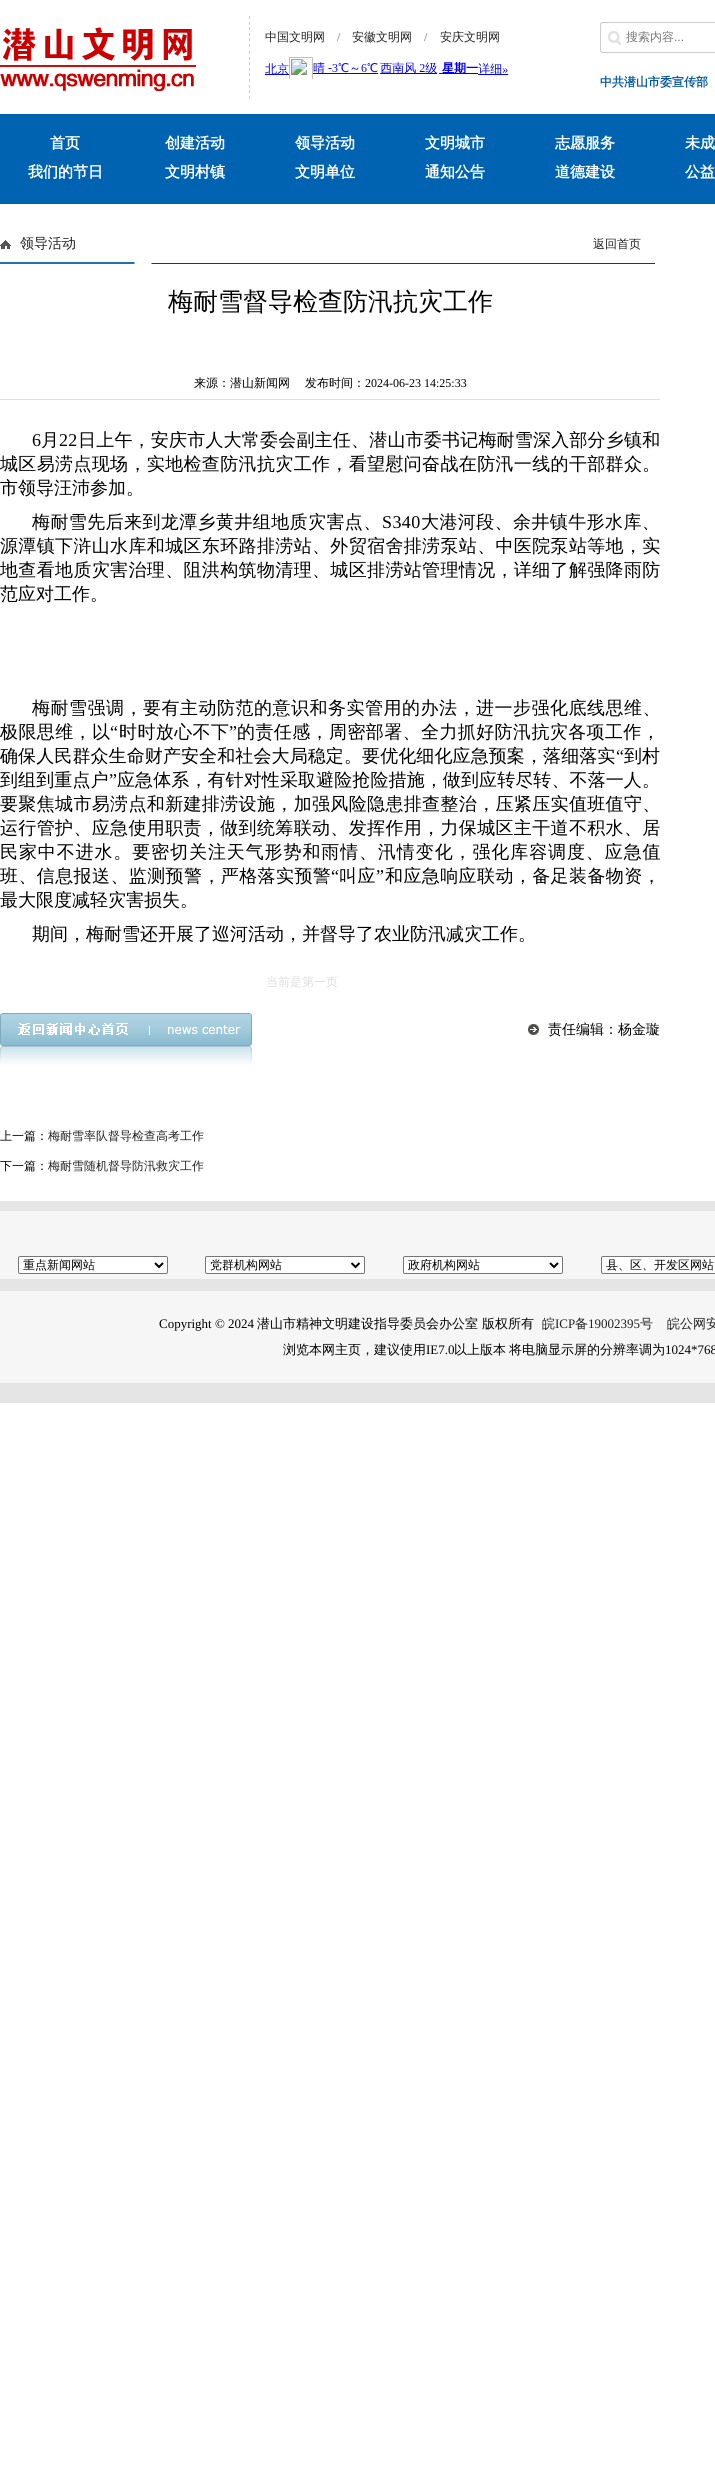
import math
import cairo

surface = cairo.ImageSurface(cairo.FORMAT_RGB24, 715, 2483)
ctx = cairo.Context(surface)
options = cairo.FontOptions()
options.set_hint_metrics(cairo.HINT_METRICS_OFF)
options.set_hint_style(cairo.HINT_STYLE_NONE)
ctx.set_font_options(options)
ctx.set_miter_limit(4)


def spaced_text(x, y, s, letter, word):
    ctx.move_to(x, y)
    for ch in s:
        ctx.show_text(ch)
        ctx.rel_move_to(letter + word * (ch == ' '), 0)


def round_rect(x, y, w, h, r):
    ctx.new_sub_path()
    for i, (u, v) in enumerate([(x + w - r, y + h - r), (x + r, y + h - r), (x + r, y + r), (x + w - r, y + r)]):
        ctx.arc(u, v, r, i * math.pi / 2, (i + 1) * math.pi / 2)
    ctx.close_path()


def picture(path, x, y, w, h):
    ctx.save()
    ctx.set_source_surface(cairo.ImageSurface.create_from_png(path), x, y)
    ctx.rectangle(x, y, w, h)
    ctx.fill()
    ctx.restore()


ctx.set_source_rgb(1, 1, 1)
ctx.paint()
picture("img1.png", 249, 16, 1, 83)
picture("img2.png", 0, 27, 196, 64)
ctx.select_font_face("WenQuanYi Zen Hei Medium")
ctx.set_font_size(12)
ctx.set_source_rgb(0.133, 0.133, 0.133)
ctx.move_to(265, 41)
ctx.show_text("中国文明网")
ctx.select_font_face("Liberation Serif")
ctx.set_source_rgb(0.4, 0.4, 0.4)
ctx.move_to(337, 41)
ctx.show_text("/")
ctx.select_font_face("WenQuanYi Zen Hei Medium")
ctx.set_source_rgb(0.133, 0.133, 0.133)
ctx.move_to(352, 41)
ctx.show_text("安徽文明网")
ctx.select_font_face("Liberation Serif")
ctx.set_source_rgb(0.4, 0.4, 0.4)
ctx.move_to(424, 41)
ctx.show_text("/")
ctx.select_font_face("WenQuanYi Zen Hei Medium")
ctx.set_source_rgb(0.133, 0.133, 0.133)
ctx.move_to(440, 41)
ctx.show_text("安庆文明网")
picture("img3.png", 265, 57, 244, 22)
picture("img4.png", 608, 31, 13, 14)
ctx.set_source_rgb(0.8, 0.8, 0.8)
ctx.set_fill_rule(cairo.FILL_RULE_EVEN_ODD)
ctx.new_path()
ctx.move_to(603, 22)
ctx.line_to(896, 22)
ctx.line_to(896, 53)
ctx.line_to(603, 53)
ctx.curve_to(601, 53, 600, 52, 600, 50)
ctx.line_to(600, 25)
ctx.curve_to(600, 23, 601, 22, 603, 22)
ctx.close_path()
ctx.move_to(603, 23)
ctx.line_to(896, 23)
ctx.line_to(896, 52)
ctx.line_to(603, 52)
ctx.curve_to(602, 52, 601, 51, 601, 50)
ctx.line_to(601, 25)
ctx.curve_to(601, 24, 602, 23, 603, 23)
ctx.close_path()
ctx.fill()
ctx.set_source_rgb(0.459, 0.459, 0.459)
ctx.move_to(626, 41)
ctx.show_text("搜索内容")
ctx.select_font_face("Liberation Sans")
ctx.move_to(674, 41)
ctx.show_text("...")
ctx.select_font_face("WenQuanYi Zen Hei", cairo.FONT_SLANT_NORMAL, cairo.FONT_WEIGHT_BOLD)
ctx.set_source_rgb(0.02, 0.353, 0.608)
spaced_text(600, 86, "中共潜山市委宣传部", 0, -1)
ctx.set_source_rgb(0, 0.388, 0.694)
ctx.rectangle(0, 114, 715, 90)
ctx.fill()
ctx.set_font_size(15)
ctx.set_source_rgb(1, 1, 1)
ctx.move_to(50, 148)
ctx.show_text("首页")
ctx.move_to(165, 148)
ctx.show_text("创建活动")
ctx.move_to(295, 148)
ctx.show_text("领导活动")
ctx.move_to(425, 148)
ctx.show_text("文明城市")
ctx.move_to(555, 148)
ctx.show_text("志愿服务")
ctx.move_to(685, 148)
ctx.show_text("未成")
ctx.move_to(28, 177)
ctx.show_text("我们的节日")
ctx.move_to(165, 177)
ctx.show_text("文明村镇")
ctx.move_to(295, 177)
ctx.show_text("文明单位")
ctx.move_to(425, 177)
ctx.show_text("通知公告")
ctx.move_to(555, 177)
ctx.show_text("道德建设")
ctx.move_to(685, 177)
ctx.show_text("公益")
picture("img5.png", 0, 262, 655, 2)
picture("img6.png", 0, 240, 11, 9)
ctx.select_font_face("WenQuanYi Zen Hei Medium")
ctx.set_font_size(14)
ctx.set_source_rgb(0.133, 0.133, 0.133)
ctx.move_to(20, 248)
ctx.show_text("领导活动")
ctx.set_font_size(12)
ctx.move_to(593, 248)
ctx.show_text("返回首页")
ctx.set_font_size(25)
ctx.set_source_rgb(0, 0, 0)
ctx.move_to(168, 310)
ctx.show_text("梅耐雪督导检查防汛抗灾工作")
ctx.set_source_rgb(0.871, 0.871, 0.871)
ctx.rectangle(0, 399, 660, 1)
ctx.fill()
ctx.set_font_size(12)
ctx.set_source_rgb(0, 0, 0)
ctx.move_to(194, 387)
ctx.show_text("来源：潜山新闻网")
ctx.move_to(305, 387)
ctx.show_text("发布时间：")
ctx.select_font_face("Liberation Serif")
ctx.move_to(365, 387)
ctx.show_text("2024-06-23 14:25:33")
ctx.set_font_size(18)
spaced_text(32, 446, "6", 0.2, 0)
ctx.select_font_face("WenQuanYi Zen Hei Medium")
spaced_text(41, 446, "月", 0.2, 0)
ctx.select_font_face("Liberation Serif")
spaced_text(59, 446, "22", 0.2, 0)
ctx.select_font_face("WenQuanYi Zen Hei Medium")
spaced_text(78, 446, "日上午，安庆市人大常委会副主任、潜山市委书记梅耐雪深入部分乡镇和", 0.2, 0)
spaced_text(0, 470, "城区易涝点现场，实地检查防汛抗灾工作，看望慰问奋战在防汛一线的干部群众。", 0.35, 0)
ctx.move_to(0, 494)
ctx.show_text("市领导汪沛参加。")
spaced_text(32, 528, "梅耐雪先后来到龙潭乡黄井组地质灾害点、", 0.4, 0)
ctx.select_font_face("Liberation Serif")
spaced_text(382, 528, "S340", 0.4, 0)
ctx.select_font_face("WenQuanYi Zen Hei Medium")
spaced_text(421, 528, "大港河段、余井镇牛形水库、", 0.4, 0)
spaced_text(0, 552, "源潭镇下浒山水库和城区东环路排涝站、外贸宿舍排涝泵站、中医院泵站等地，实", 0.35, 0)
spaced_text(0, 576, "地查看地质灾害治理、阻洪构筑物清理、城区排涝站管理情况，详细了解强降雨防", 0.35, 0)
ctx.move_to(0, 600)
ctx.show_text("范应对工作。")
spaced_text(32, 714, "梅耐雪强调，要有主动防范的意识和务实管用的办法，进一步强化底线思维、", 0.5, 0)
spaced_text(0, 738, "极限思维，以", 0.4, 0)
ctx.select_font_face("Liberation Serif")
spaced_text(110, 738, "“", 0.4, 0)
ctx.select_font_face("WenQuanYi Zen Hei Medium")
spaced_text(119, 738, "时时放心不下", 0.4, 0)
ctx.select_font_face("Liberation Serif")
spaced_text(229, 738, "”", 0.4, 0)
ctx.select_font_face("WenQuanYi Zen Hei Medium")
spaced_text(237, 738, "的责任感，周密部署、全力抓好防汛抗灾各项工作，", 0.4, 0)
spaced_text(0, 762, "确保人民群众生命财产安全和社会大局稳定。要优化细化应急预案，落细落实", 0.1, 0)
ctx.select_font_face("Liberation Serif")
spaced_text(616, 762, "“", 0.1, 0)
ctx.select_font_face("WenQuanYi Zen Hei Medium")
spaced_text(624, 762, "到村", 0.1, 0)
spaced_text(0, 786, "到组到重点户", 0.1, 0)
ctx.select_font_face("Liberation Serif")
spaced_text(109, 786, "”", 0.1, 0)
ctx.select_font_face("WenQuanYi Zen Hei Medium")
spaced_text(117, 786, "应急体系，有针对性采取避险抢险措施，做到应转尽转、不落一人。", 0.1, 0)
spaced_text(0, 810, "要聚焦城市易涝点和新建排涝设施，加强风险隐患排查整治，压紧压实值班值守、", 0.35, 0)
spaced_text(0, 834, "运行管护、应急使用职责，做到统筹联动、发挥作用，力保城区主干道不积水、居", 0.35, 0)
spaced_text(0, 858, "民家中不进水。要密切关注天气形势和雨情、汛情变化，强化库容调度、应急值", 0.9, 0)
spaced_text(0, 882, "班、信息报送、监测预警，严格落实预警", 0.4, 0)
ctx.select_font_face("Liberation Serif")
spaced_text(331, 882, "“", 0.4, 0)
ctx.select_font_face("WenQuanYi Zen Hei Medium")
spaced_text(339, 882, "叫应", 0.4, 0)
ctx.select_font_face("Liberation Serif")
spaced_text(376, 882, "”", 0.4, 0)
ctx.select_font_face("WenQuanYi Zen Hei Medium")
spaced_text(385, 882, "和应急响应联动，备足装备物资，", 0.4, 0)
ctx.move_to(0, 906)
ctx.show_text("最大限度减轻灾害损失。")
ctx.move_to(32, 940)
ctx.show_text("期间，梅耐雪还开展了巡河活动，并督导了农业防汛减灾工作。")
ctx.set_font_size(12)
ctx.set_source_rgb(0.867, 0.867, 0.867)
ctx.move_to(266, 986)
ctx.show_text("当前是第一页")
picture("img7.png", 0, 1013, 252, 52)
picture("img8.png", 528, 1024, 11, 11)
ctx.set_font_size(14)
ctx.set_source_rgb(0, 0, 0)
ctx.move_to(548, 1034)
ctx.show_text("责任编辑：杨金璇")
ctx.set_font_size(12)
ctx.move_to(0, 1140)
ctx.show_text("上一篇：")
ctx.set_source_rgb(0.133, 0.133, 0.133)
ctx.move_to(48, 1140)
ctx.show_text("梅耐雪率队督导检查高考工作")
ctx.set_source_rgb(0, 0, 0)
ctx.move_to(0, 1170)
ctx.show_text("下一篇：")
ctx.set_source_rgb(0.133, 0.133, 0.133)
ctx.move_to(48, 1170)
ctx.show_text("梅耐雪随机督导防汛救灾工作")
ctx.set_source_rgb(0.898, 0.898, 0.898)
ctx.rectangle(0, 1201, 715, 202)
ctx.fill()
ctx.set_source_rgb(0.961, 0.961, 0.961)
ctx.rectangle(0, 1211, 715, 68)
ctx.fill()
ctx.set_source_rgb(1, 1, 1)
round_rect(18.5, 1256.5, 149, 17, 1.5)
ctx.fill_preserve()
ctx.set_source_rgb(0.463, 0.463, 0.463)
ctx.set_line_width(1)
ctx.stroke()
ctx.new_path()
ctx.move_to(155, 1263)
ctx.line_to(159, 1267)
ctx.line_to(163, 1263)
ctx.set_source_rgb(0, 0, 0)
ctx.set_line_width(2)
ctx.stroke()
ctx.move_to(23, 1269)
ctx.show_text("重点新闻网站")
ctx.set_source_rgb(1, 1, 1)
round_rect(205.5, 1256.5, 159, 17, 1.5)
ctx.fill_preserve()
ctx.set_source_rgb(0.463, 0.463, 0.463)
ctx.set_line_width(1)
ctx.stroke()
ctx.new_path()
ctx.move_to(351.5, 1263)
ctx.line_to(355.5, 1267)
ctx.line_to(359.5, 1263)
ctx.set_source_rgb(0, 0, 0)
ctx.set_line_width(2)
ctx.stroke()
ctx.move_to(210, 1269)
ctx.show_text("党群机构网站")
ctx.set_source_rgb(1, 1, 1)
round_rect(403.5, 1256.5, 159, 17, 1.5)
ctx.fill_preserve()
ctx.set_source_rgb(0.463, 0.463, 0.463)
ctx.set_line_width(1)
ctx.stroke()
ctx.new_path()
ctx.move_to(550, 1263)
ctx.line_to(554, 1267)
ctx.line_to(558, 1263)
ctx.set_source_rgb(0, 0, 0)
ctx.set_line_width(2)
ctx.stroke()
ctx.move_to(408, 1269)
ctx.show_text("政府机构网站")
ctx.set_source_rgb(1, 1, 1)
ctx.new_path()
ctx.move_to(603, 1256)
ctx.line_to(715, 1256)
ctx.line_to(715, 1274)
ctx.line_to(603, 1274)
ctx.curve_to(602, 1274, 601, 1273, 601, 1272)
ctx.line_to(601, 1258)
ctx.curve_to(601, 1257, 602, 1256, 603, 1256)
ctx.close_path()
ctx.fill()
round_rect(601.5, 1256.5, 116, 17, 1.5)
ctx.set_source_rgb(0.463, 0.463, 0.463)
ctx.set_line_width(1)
ctx.stroke()
ctx.set_source_rgb(0, 0, 0)
ctx.move_to(606, 1269)
ctx.show_text("县、区、开发区网站")
ctx.set_source_rgb(0.961, 0.961, 0.961)
ctx.rectangle(0, 1291, 715, 92)
ctx.fill()
ctx.select_font_face("Liberation Serif")
ctx.set_font_size(13)
ctx.set_source_rgb(0, 0, 0)
ctx.move_to(159, 1328)
ctx.show_text("Copyright © 2024")
ctx.select_font_face("WenQuanYi Zen Hei Medium")
ctx.move_to(257, 1328)
ctx.show_text("潜山市精神文明建设指导委员会办公室 版权所有")
ctx.set_source_rgb(0.133, 0.133, 0.133)
ctx.move_to(542, 1328)
ctx.show_text("皖")
ctx.select_font_face("Liberation Serif")
ctx.move_to(555, 1328)
ctx.show_text("ICP")
ctx.select_font_face("WenQuanYi Zen Hei Medium")
ctx.move_to(575, 1328)
ctx.show_text("备")
ctx.select_font_face("Liberation Serif")
ctx.move_to(588, 1328)
ctx.show_text("19002395")
ctx.select_font_face("WenQuanYi Zen Hei Medium")
ctx.move_to(640, 1328)
ctx.show_text("号")
ctx.move_to(667, 1328)
ctx.show_text("皖公网安")
ctx.set_source_rgb(0, 0, 0)
ctx.move_to(283, 1354)
ctx.show_text("浏览本网主页，建议使用")
ctx.select_font_face("Liberation Serif")
ctx.move_to(426, 1354)
ctx.show_text("IE7.0")
ctx.select_font_face("WenQuanYi Zen Hei Medium")
ctx.move_to(454, 1354)
ctx.show_text("以上版本")
ctx.move_to(509, 1354)
ctx.show_text("将电脑显示屏的分辨率调为")
ctx.select_font_face("Liberation Serif")
ctx.move_to(665, 1354)
ctx.show_text("1024*768")
surface.write_to_png("page.png")
